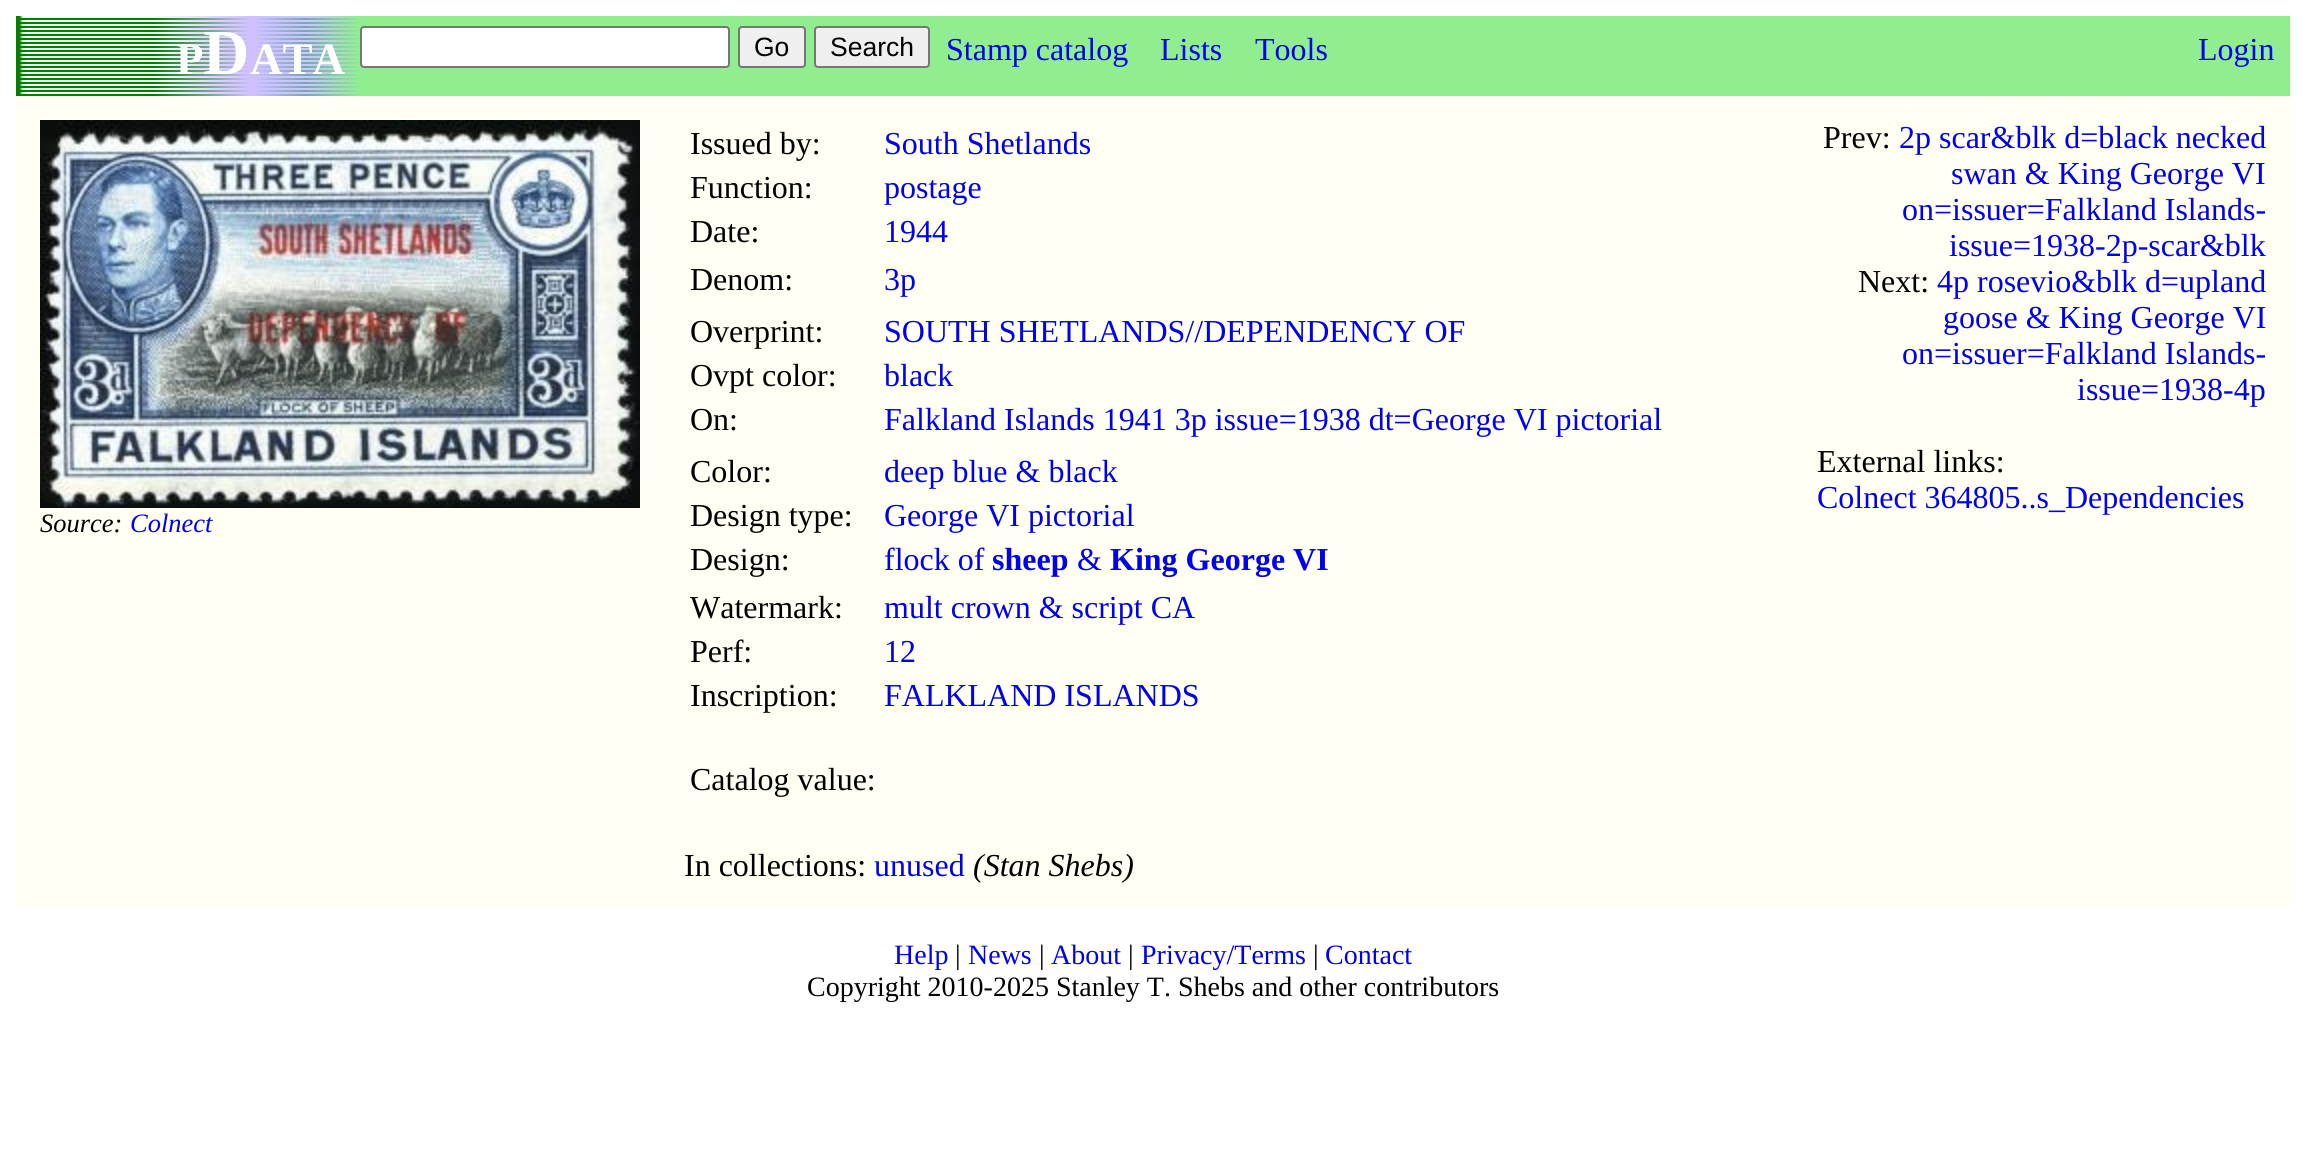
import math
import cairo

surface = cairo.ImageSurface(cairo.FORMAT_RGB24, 2305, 1175)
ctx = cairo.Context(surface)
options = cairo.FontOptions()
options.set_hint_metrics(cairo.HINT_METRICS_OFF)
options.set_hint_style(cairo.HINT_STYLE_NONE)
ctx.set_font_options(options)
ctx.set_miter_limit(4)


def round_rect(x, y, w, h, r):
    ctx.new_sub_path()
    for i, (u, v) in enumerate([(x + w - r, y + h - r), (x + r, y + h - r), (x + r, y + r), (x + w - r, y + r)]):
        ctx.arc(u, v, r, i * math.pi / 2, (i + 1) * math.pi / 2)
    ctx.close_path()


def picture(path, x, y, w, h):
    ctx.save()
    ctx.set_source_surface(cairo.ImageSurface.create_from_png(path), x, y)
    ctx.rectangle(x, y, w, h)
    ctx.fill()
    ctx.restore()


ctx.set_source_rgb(1, 1, 1)
ctx.paint()
ctx.set_source_rgb(0.565, 0.933, 0.565)
ctx.rectangle(360, 16, 1930, 80)
ctx.fill()
picture("img1.png", 16, 16, 344, 80)
ctx.select_font_face("Liberation Serif", cairo.FONT_SLANT_NORMAL, cairo.FONT_WEIGHT_BOLD)
ctx.set_font_size(45)
ctx.set_source_rgb(0.988, 1, 0.988)
ctx.move_to(176, 74)
ctx.show_text("P")
ctx.set_font_size(64)
ctx.move_to(203, 74)
ctx.show_text("D")
ctx.set_font_size(45)
ctx.move_to(250, 74)
ctx.show_text("ATA")
ctx.set_source_rgb(1, 1, 1)
round_rect(361, 27, 368, 40, 3)
ctx.fill_preserve()
ctx.set_source_rgb(0.463, 0.463, 0.463)
ctx.stroke()
ctx.set_source_rgb(0.937, 0.937, 0.937)
round_rect(739, 27, 66, 40, 3)
ctx.fill_preserve()
ctx.set_source_rgb(0.463, 0.463, 0.463)
ctx.stroke()
ctx.select_font_face("Liberation Sans")
ctx.set_font_size(26.5)
ctx.set_source_rgb(0, 0, 0)
ctx.move_to(754, 56)
ctx.show_text("Go")
ctx.set_source_rgb(0.937, 0.937, 0.937)
round_rect(815, 27, 114, 40, 3)
ctx.fill_preserve()
ctx.set_source_rgb(0.463, 0.463, 0.463)
ctx.stroke()
ctx.set_source_rgb(0, 0, 0)
ctx.move_to(830, 56)
ctx.show_text("Search")
ctx.select_font_face("Liberation Serif")
ctx.set_font_size(32)
ctx.set_source_rgb(0, 0, 0.933)
ctx.move_to(946, 60)
ctx.show_text("Stamp catalog")
ctx.move_to(1160, 60)
ctx.show_text("Lists")
ctx.move_to(1255, 60)
ctx.show_text("Tools")
ctx.move_to(2198, 60)
ctx.show_text("Login")
ctx.set_source_rgb(1, 1, 0.957)
ctx.rectangle(16, 96, 2274, 812)
ctx.fill()
picture("img2.png", 40, 120, 600, 388)
ctx.select_font_face("Liberation Serif", cairo.FONT_SLANT_ITALIC)
ctx.set_font_size(26.5)
ctx.set_source_rgb(0, 0, 0)
ctx.move_to(40, 532)
ctx.show_text("Source:")
ctx.set_source_rgb(0, 0, 0.933)
ctx.move_to(130, 532)
ctx.show_text("Colnect")
ctx.select_font_face("Liberation Serif")
ctx.set_font_size(32)
ctx.set_source_rgb(0, 0, 0)
ctx.move_to(690, 154)
ctx.show_text("Issued by:")
ctx.set_source_rgb(0, 0, 0.933)
ctx.move_to(884, 154)
ctx.show_text("South Shetlands")
ctx.set_source_rgb(0, 0, 0)
ctx.move_to(690, 198)
ctx.show_text("Function:")
ctx.set_source_rgb(0, 0, 0.933)
ctx.move_to(884, 198)
ctx.show_text("postage")
ctx.set_source_rgb(0, 0, 0)
ctx.move_to(690, 242)
ctx.show_text("Date:")
ctx.set_source_rgb(0, 0, 0.933)
ctx.move_to(884, 242)
ctx.show_text("1944")
ctx.set_source_rgb(0, 0, 0)
ctx.move_to(690, 290)
ctx.show_text("Denom:")
ctx.set_source_rgb(0, 0, 0.933)
ctx.move_to(884, 290)
ctx.show_text("3p")
ctx.set_source_rgb(0, 0, 0)
ctx.move_to(690, 342)
ctx.show_text("Overprint:")
ctx.set_source_rgb(0, 0, 0.933)
ctx.move_to(884, 342)
ctx.show_text("SOUTH SHETLANDS//DEPENDENCY OF")
ctx.set_source_rgb(0, 0, 0)
ctx.move_to(690, 386)
ctx.show_text("Ovpt color:")
ctx.set_source_rgb(0, 0, 0.933)
ctx.move_to(884, 386)
ctx.show_text("black")
ctx.set_source_rgb(0, 0, 0)
ctx.move_to(690, 430)
ctx.show_text("On:")
ctx.set_source_rgb(0, 0, 0.933)
ctx.move_to(884, 430)
ctx.show_text("Falkland Islands 1941 3p issue=1938 dt=George VI pictorial")
ctx.set_source_rgb(0, 0, 0)
ctx.move_to(690, 482)
ctx.show_text("Color:")
ctx.set_source_rgb(0, 0, 0.933)
ctx.move_to(884, 482)
ctx.show_text("deep blue & black")
ctx.set_source_rgb(0, 0, 0)
ctx.move_to(690, 526)
ctx.show_text("Design type:")
ctx.set_source_rgb(0, 0, 0.933)
ctx.move_to(884, 526)
ctx.show_text("George VI pictorial")
ctx.set_source_rgb(0, 0, 0)
ctx.move_to(690, 570)
ctx.show_text("Design:")
ctx.set_source_rgb(0, 0, 0.933)
ctx.move_to(884, 570)
ctx.show_text("flock of")
ctx.select_font_face("Liberation Serif", cairo.FONT_SLANT_NORMAL, cairo.FONT_WEIGHT_BOLD)
ctx.move_to(992, 570)
ctx.show_text("sheep")
ctx.select_font_face("Liberation Serif")
ctx.move_to(1077, 570)
ctx.show_text("&")
ctx.select_font_face("Liberation Serif", cairo.FONT_SLANT_NORMAL, cairo.FONT_WEIGHT_BOLD)
ctx.move_to(1110, 570)
ctx.show_text("King George VI")
ctx.select_font_face("Liberation Serif")
ctx.set_source_rgb(0, 0, 0)
ctx.move_to(690, 618)
ctx.show_text("Watermark:")
ctx.set_source_rgb(0, 0, 0.933)
ctx.move_to(884, 618)
ctx.show_text("mult crown & script CA")
ctx.set_source_rgb(0, 0, 0)
ctx.move_to(690, 662)
ctx.show_text("Perf:")
ctx.set_source_rgb(0, 0, 0.933)
ctx.move_to(884, 662)
ctx.show_text("12")
ctx.set_source_rgb(0, 0, 0)
ctx.move_to(690, 706)
ctx.show_text("Inscription:")
ctx.set_source_rgb(0, 0, 0.933)
ctx.move_to(884, 706)
ctx.show_text("FALKLAND ISLANDS")
ctx.set_source_rgb(0, 0, 0)
ctx.move_to(690, 790)
ctx.show_text("Catalog value:")
ctx.move_to(684, 876)
ctx.show_text("In collections:")
ctx.set_source_rgb(0, 0, 0.933)
ctx.move_to(874, 876)
ctx.show_text("unused")
ctx.select_font_face("Liberation Serif", cairo.FONT_SLANT_ITALIC)
ctx.set_source_rgb(0, 0, 0)
ctx.move_to(973, 876)
ctx.show_text("(Stan Shebs)")
ctx.select_font_face("Liberation Serif")
ctx.move_to(1823, 148)
ctx.show_text("Prev:")
ctx.set_source_rgb(0, 0, 0.933)
ctx.move_to(1899, 148)
ctx.show_text("2p scar&blk d=black necked")
ctx.move_to(1951, 184)
ctx.show_text("swan & King George VI")
ctx.move_to(1902, 220)
ctx.show_text("on=issuer=Falkland Islands-")
ctx.move_to(1949, 256)
ctx.show_text("issue=1938-2p-scar&blk")
ctx.set_source_rgb(0, 0, 0)
ctx.move_to(1858, 292)
ctx.show_text("Next:")
ctx.set_source_rgb(0, 0, 0.933)
ctx.move_to(1937, 292)
ctx.show_text("4p rosevio&blk d=upland")
ctx.move_to(1943, 328)
ctx.show_text("goose & King George VI")
ctx.move_to(1902, 364)
ctx.show_text("on=issuer=Falkland Islands-")
ctx.move_to(2077, 400)
ctx.show_text("issue=1938-4p")
ctx.set_source_rgb(0, 0, 0)
ctx.move_to(1817, 472)
ctx.show_text("External links:")
ctx.set_source_rgb(0, 0, 0.933)
ctx.move_to(1817, 508)
ctx.show_text("Colnect 364805..s_Dependencies")
ctx.set_font_size(28)
ctx.move_to(894, 964)
ctx.show_text("Help")
ctx.set_source_rgb(0, 0, 0)
ctx.move_to(955, 964)
ctx.show_text("|")
ctx.set_source_rgb(0, 0, 0.933)
ctx.move_to(968, 964)
ctx.show_text("News")
ctx.set_source_rgb(0, 0, 0)
ctx.move_to(1039, 964)
ctx.show_text("|")
ctx.set_source_rgb(0, 0, 0.933)
ctx.move_to(1051, 964)
ctx.show_text("About")
ctx.set_source_rgb(0, 0, 0)
ctx.move_to(1128, 964)
ctx.show_text("|")
ctx.set_source_rgb(0, 0, 0.933)
ctx.move_to(1141, 964)
ctx.show_text("Privacy/Terms")
ctx.set_source_rgb(0, 0, 0)
ctx.move_to(1313, 964)
ctx.show_text("|")
ctx.set_source_rgb(0, 0, 0.933)
ctx.move_to(1325, 964)
ctx.show_text("Contact")
ctx.set_source_rgb(0, 0, 0)
ctx.move_to(807, 996)
ctx.show_text("Copyright 2010-2025 Stanley T. Shebs and other contributors")
surface.write_to_png("page.png")
